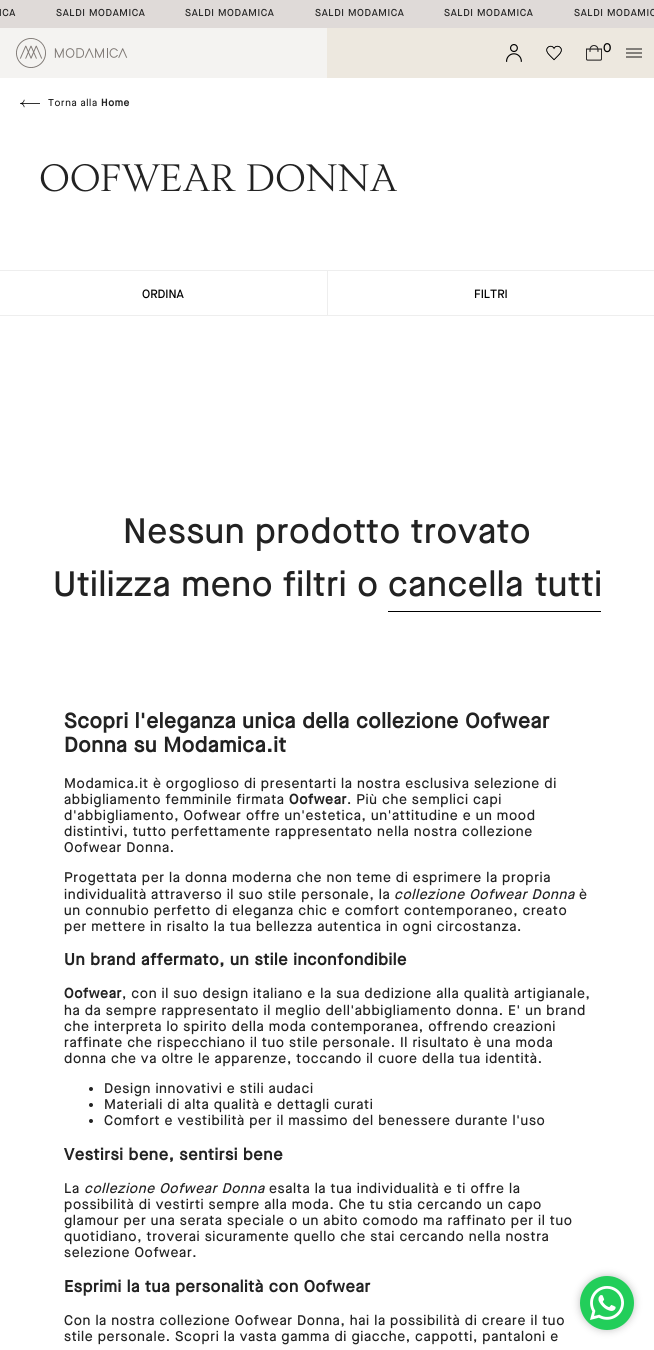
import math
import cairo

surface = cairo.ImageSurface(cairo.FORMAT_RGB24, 654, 1350)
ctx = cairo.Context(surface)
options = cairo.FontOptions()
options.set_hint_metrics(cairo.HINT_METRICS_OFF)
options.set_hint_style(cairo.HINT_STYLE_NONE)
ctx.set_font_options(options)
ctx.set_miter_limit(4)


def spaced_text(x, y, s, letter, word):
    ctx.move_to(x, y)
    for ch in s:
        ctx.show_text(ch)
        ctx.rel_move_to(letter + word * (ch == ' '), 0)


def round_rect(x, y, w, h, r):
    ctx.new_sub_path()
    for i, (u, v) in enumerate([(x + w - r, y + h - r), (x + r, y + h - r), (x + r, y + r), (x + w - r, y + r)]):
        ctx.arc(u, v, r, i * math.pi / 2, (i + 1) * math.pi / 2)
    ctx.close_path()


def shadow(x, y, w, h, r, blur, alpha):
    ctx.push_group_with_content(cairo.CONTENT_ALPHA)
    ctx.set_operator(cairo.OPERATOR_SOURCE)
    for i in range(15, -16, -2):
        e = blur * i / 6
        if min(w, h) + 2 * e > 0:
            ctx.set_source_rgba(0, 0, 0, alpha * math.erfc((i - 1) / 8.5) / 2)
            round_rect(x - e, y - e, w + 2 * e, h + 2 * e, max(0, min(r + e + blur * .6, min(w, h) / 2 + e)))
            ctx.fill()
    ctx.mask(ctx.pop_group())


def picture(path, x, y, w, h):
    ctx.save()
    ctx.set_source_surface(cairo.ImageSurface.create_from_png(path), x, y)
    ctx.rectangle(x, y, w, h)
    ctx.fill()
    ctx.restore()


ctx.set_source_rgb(1, 1, 1)
ctx.paint()
ctx.set_source_rgb(0.875, 0.855, 0.847)
ctx.rectangle(0, 0, 654, 28)
ctx.fill()
ctx.select_font_face("Maison Neue Medium")
ctx.set_font_size(10)
ctx.set_source_rgb(0.133, 0.133, 0.133)
spaced_text(-1, 16, "ICA", 0.65, 0)
spaced_text(56, 16, "SALDI MODAMICA", 0.65, 0)
spaced_text(185, 16, "SALDI MODAMICA", 0.65, 0)
spaced_text(315, 16, "SALDI MODAMICA", 0.65, 0)
spaced_text(444, 16, "SALDI MODAMICA", 0.65, 0)
spaced_text(574, 16, "SALDI MODAMIC", 0.65, 0)
ctx.set_source_rgb(0.957, 0.953, 0.945)
ctx.rectangle(0, 28, 327, 50)
ctx.fill()
picture("img1.png", 16, 38, 112, 30)
ctx.set_source_rgb(0.929, 0.91, 0.875)
ctx.rectangle(327, 28, 327, 50)
ctx.fill()
picture("img2.png", 506, 44, 16, 18)
picture("img3.png", 546, 45, 16, 16)
picture("img4.png", 586, 45, 16, 16)
ctx.set_font_size(13)
ctx.set_source_rgb(0, 0, 0)
ctx.move_to(603, 52)
ctx.show_text("0")
picture("img5.png", 626, 48, 16, 10)
picture("img6.png", 20, 99, 20, 9)
ctx.set_font_size(10)
ctx.set_source_rgb(0.133, 0.133, 0.133)
spaced_text(48, 106, "Torna alla", 0.65, 0)
ctx.select_font_face("Maison Neue", cairo.FONT_SLANT_NORMAL, cairo.FONT_WEIGHT_BOLD)
spaced_text(101, 106, "Home", 0.65, 0)
ctx.select_font_face("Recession")
ctx.set_font_size(40)
spaced_text(40, 191, "OOFWEAR DONNA", 0.65, 0)
ctx.set_source_rgb(0.933, 0.933, 0.933)
ctx.rectangle(0, 270, 654, 46)
ctx.fill()
ctx.set_source_rgb(1, 1, 1)
ctx.rectangle(0, 271, 327, 44)
ctx.fill()
ctx.select_font_face("Maison Neue Medium")
ctx.set_font_size(12)
ctx.set_source_rgb(0, 0, 0)
ctx.move_to(142, 298)
ctx.show_text("ORDINA")
ctx.set_source_rgb(1, 1, 1)
ctx.rectangle(328, 271, 326, 44)
ctx.fill()
ctx.set_source_rgb(0, 0, 0)
ctx.move_to(474, 298)
ctx.show_text("FILTRI")
ctx.set_font_size(35.25)
ctx.set_source_rgb(0.133, 0.133, 0.133)
spaced_text(123, 543, "Nessun prodotto trovato", 0.65, 0)
spaced_text(53, 596, "Utilizza meno filtri o", 0.65, 0)
spaced_text(388, 596, "cancella tutti", 0.65, 1)
ctx.set_source_rgb(0, 0, 0)
ctx.rectangle(388, 611, 213, 1)
ctx.fill()
ctx.select_font_face("Maison Neue", cairo.FONT_SLANT_NORMAL, cairo.FONT_WEIGHT_BOLD)
ctx.set_font_size(21)
ctx.set_source_rgb(0.133, 0.133, 0.133)
spaced_text(64, 728, "Scopri l'eleganza unica della collezione Oofwear", 0.65, 0)
spaced_text(64, 752, "Donna su Modamica.it", 0.65, 0)
ctx.select_font_face("Maison Neue Medium")
ctx.set_font_size(14)
spaced_text(64, 788, "Modamica.it è orgoglioso di presentarti la nostra esclusiva selezione di", 0.65, 0)
spaced_text(64, 804, "abbigliamento femminile firmata", 0.65, 0)
ctx.select_font_face("Maison Neue", cairo.FONT_SLANT_NORMAL, cairo.FONT_WEIGHT_BOLD)
spaced_text(289, 804, "Oofwear", 0.65, 0)
ctx.select_font_face("Maison Neue Medium")
spaced_text(347, 804, ". Più che semplici capi", 0.65, 0)
spaced_text(64, 820, "d'abbigliamento, Oofwear offre un'estetica, un'attitudine e un mood", 0.65, 0)
spaced_text(64, 836, "distintivi, tutto perfettamente rappresentato nella nostra collezione", 0.65, 0)
spaced_text(64, 852, "Oofwear Donna.", 0.65, 0)
spaced_text(64, 882, "Progettata per la donna moderna che non teme di esprimere la propria", 0.65, 0)
spaced_text(64, 899, "individualità attraverso il suo stile personale, la", 0.65, 0)
ctx.select_font_face("Maison Neue Medium", cairo.FONT_SLANT_ITALIC)
spaced_text(394, 899, "collezione Oofwear Donna", 0.65, 0)
ctx.select_font_face("Maison Neue Medium")
spaced_text(579, 899, "è", 0.65, 0)
spaced_text(64, 915, "un connubio perfetto di eleganza chic e comfort contemporaneo, creato", 0.65, 0)
spaced_text(64, 931, "per mettere in risalto la tua bellezza autentica in ogni circostanza.", 0.65, 0)
ctx.select_font_face("Maison Neue", cairo.FONT_SLANT_NORMAL, cairo.FONT_WEIGHT_BOLD)
ctx.set_font_size(16.4)
spaced_text(64, 965, "Un brand affermato, un stile inconfondibile", 0.65, 0)
ctx.set_font_size(14)
spaced_text(64, 998, "Oofwear", 0.65, 0)
ctx.select_font_face("Maison Neue Medium")
spaced_text(122, 998, ", con il suo design italiano e la sua dedizione alla qualità artigianale,", 0.65, 0)
spaced_text(64, 1015, "ha da sempre rappresentato il meglio dell'abbigliamento donna. E' un brand", 0.65, 0)
spaced_text(64, 1031, "che interpreta lo spirito della moda contemporanea, offrendo creazioni", 0.65, 0)
spaced_text(64, 1047, "raffinate che rispecchiano il tuo stile personale. Il risultato è una moda", 0.65, 0)
spaced_text(64, 1063, "donna che va oltre le apparenze, toccando il cuore della tua identità.", 0.65, 0)
ctx.new_path()
ctx.arc(91, 1089, 2, 0, 2 * math.pi)
ctx.fill()
spaced_text(104, 1093, "Design innovativi e stili audaci", 0.65, 0)
ctx.new_path()
ctx.arc(91, 1105, 2, 0, 2 * math.pi)
ctx.fill()
spaced_text(104, 1109, "Materiali di alta qualità e dettagli curati", 0.65, 0)
ctx.new_path()
ctx.arc(91, 1121, 2, 0, 2 * math.pi)
ctx.fill()
spaced_text(104, 1125, "Comfort e vestibilità per il massimo del benessere durante l'uso", 0.65, 0)
ctx.select_font_face("Maison Neue", cairo.FONT_SLANT_NORMAL, cairo.FONT_WEIGHT_BOLD)
ctx.set_font_size(16.4)
spaced_text(64, 1160, "Vestirsi bene, sentirsi bene", 0.65, 0)
ctx.select_font_face("Maison Neue Medium")
ctx.set_font_size(14)
spaced_text(64, 1193, "La", 0.65, 0)
ctx.select_font_face("Maison Neue Medium", cairo.FONT_SLANT_ITALIC)
spaced_text(84, 1193, "collezione Oofwear Donna", 0.65, 0)
ctx.select_font_face("Maison Neue Medium")
spaced_text(269, 1193, "esalta la tua individualità e ti offre la", 0.65, 0)
spaced_text(64, 1209, "possibilità di vestirti sempre alla moda. Che tu stia cercando un capo", 0.65, 0)
spaced_text(64, 1225, "glamour per una serata speciale o un abito comodo ma raffinato per il tuo", 0.65, 0)
spaced_text(64, 1241, "quotidiano, troverai sicuramente quello che stai cercando nella nostra", 0.65, 0)
spaced_text(64, 1257, "selezione Oofwear.", 0.65, 0)
ctx.select_font_face("Maison Neue", cairo.FONT_SLANT_NORMAL, cairo.FONT_WEIGHT_BOLD)
ctx.set_font_size(16.4)
spaced_text(64, 1292, "Esprimi la tua personalità con Oofwear", 0.65, 0)
ctx.select_font_face("Maison Neue Medium")
ctx.set_font_size(14)
spaced_text(64, 1325, "Con la nostra collezione Oofwear Donna, hai la possibilità di creare il tuo", 0.65, 0)
spaced_text(64, 1341, "stile personale. Scopri la vasta gamma di giacche, cappotti, pantaloni e", 0.65, 0)
ctx.set_source_rgb(0.761, 0.761, 0.761)
shadow(580, 1276, 54, 54, 27, 4, 1)
ctx.set_source_rgb(0.133, 0.808, 0.353)
ctx.arc(607, 1303, 27, 0, 2 * math.pi)
ctx.fill()
picture("img7.png", 590, 1286, 34, 34)
surface.write_to_png("page.png")
